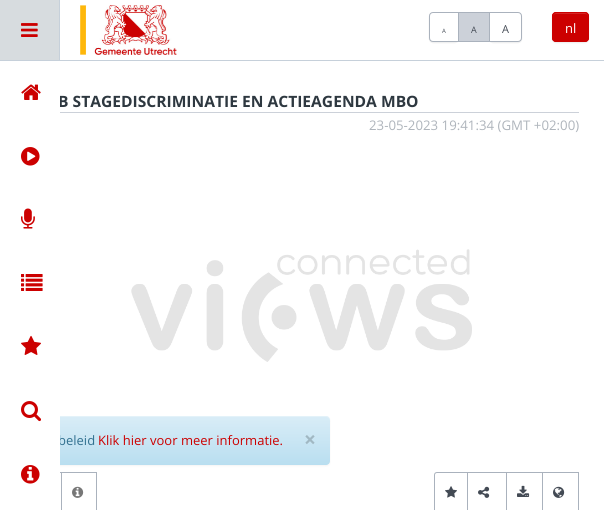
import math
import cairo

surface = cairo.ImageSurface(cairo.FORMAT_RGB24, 604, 510)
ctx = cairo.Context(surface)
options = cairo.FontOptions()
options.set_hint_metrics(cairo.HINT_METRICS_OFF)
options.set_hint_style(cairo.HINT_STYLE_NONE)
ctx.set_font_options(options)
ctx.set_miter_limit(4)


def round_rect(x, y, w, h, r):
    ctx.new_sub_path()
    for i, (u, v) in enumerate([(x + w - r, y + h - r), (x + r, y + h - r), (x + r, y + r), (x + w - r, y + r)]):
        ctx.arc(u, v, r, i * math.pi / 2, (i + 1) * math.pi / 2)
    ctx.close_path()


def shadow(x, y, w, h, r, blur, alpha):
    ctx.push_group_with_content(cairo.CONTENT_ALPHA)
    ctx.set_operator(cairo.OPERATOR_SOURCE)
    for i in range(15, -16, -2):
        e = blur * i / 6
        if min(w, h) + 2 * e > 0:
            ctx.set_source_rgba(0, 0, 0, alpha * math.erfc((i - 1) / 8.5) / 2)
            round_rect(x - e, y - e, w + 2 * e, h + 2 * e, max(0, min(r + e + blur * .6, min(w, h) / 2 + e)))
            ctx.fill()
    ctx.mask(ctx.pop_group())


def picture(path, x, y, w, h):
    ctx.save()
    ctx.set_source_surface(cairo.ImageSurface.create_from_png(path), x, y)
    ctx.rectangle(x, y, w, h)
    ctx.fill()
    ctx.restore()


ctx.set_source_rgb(1, 1, 1)
ctx.paint()
ctx.set_source_rgb(0.776, 0.816, 0.855)
ctx.rectangle(59, 0, 1, 60)
ctx.fill()
ctx.set_source_rgb(0.843, 0.863, 0.875)
ctx.rectangle(0, 0, 59, 60)
ctx.fill()
picture("img1.png", 21, 23, 17, 14)
ctx.select_font_face("Open Sans", cairo.FONT_SLANT_NORMAL, cairo.FONT_WEIGHT_BOLD)
ctx.set_font_size(15.6)
ctx.set_source_rgb(0.18, 0.22, 0.251)
ctx.move_to(58, 107)
ctx.show_text("B STAGEDISCRIMINATIE EN ACTIEAGENDA MBO")
ctx.rectangle(25.5, 472.5, 36, 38)
ctx.set_source_rgb(0.667, 0.698, 0.741)
ctx.set_line_width(1)
ctx.stroke()
ctx.set_source_rgb(0, 0, 0)
shadow(0, 417, 330, 49, 4, 1, 0.05)
gradient = cairo.LinearGradient(165, 416, 165, 465)
gradient.add_color_stop_rgba(0, 0.851, 0.929, 0.969, 1)
gradient.add_color_stop_rgba(1, 0.725, 0.871, 0.941, 1)
ctx.set_source(gradient)
round_rect(0, 416, 330, 49, 4)
ctx.fill()
ctx.set_source_rgba(1, 1, 1, 0.25)
ctx.new_path()
ctx.move_to(4, 417)
ctx.line_to(326, 417)
ctx.curve_to(328, 417, 330, 419, 330, 421)
ctx.line_to(330, 420)
ctx.curve_to(330, 418, 328, 416, 326, 416)
ctx.line_to(4, 416)
ctx.curve_to(2, 416, 0, 418, 0, 420)
ctx.line_to(0, 421)
ctx.curve_to(0, 419, 2, 417, 4, 417)
ctx.close_path()
ctx.fill()
ctx.select_font_face("Open Sans")
ctx.set_font_size(13)
ctx.set_source_rgb(0.192, 0.439, 0.561)
ctx.move_to(58, 445)
ctx.show_text("beleid")
ctx.set_source_rgb(1, 1, 1)
ctx.rectangle(0, 95, 60, 415)
ctx.fill()
picture("img2.png", 21, 84, 20, 16)
picture("img3.png", 21, 147, 19, 19)
picture("img4.png", 21, 208, 14, 21)
picture("img5.png", 21, 274, 22, 17)
picture("img6.png", 21, 335, 20, 20)
picture("img7.png", 21, 401, 20, 21)
picture("img8.png", 21, 465, 19, 19)
ctx.set_source_rgb(0.776, 0.816, 0.855)
ctx.rectangle(0, 60, 604, 1)
ctx.fill()
picture("img9.png", 80, 5, 97, 50)
ctx.set_source_rgb(0, 0, 0)
shadow(429, 13, 30, 30, 4, 0.5, 0.07)
ctx.set_source_rgb(1, 1, 1)
ctx.new_path()
ctx.move_to(433, 12.5)
ctx.line_to(458.5, 12.5)
ctx.line_to(458.5, 41.5)
ctx.line_to(433, 41.5)
ctx.curve_to(431, 41.5, 429.5, 40, 429.5, 38)
ctx.line_to(429.5, 16)
ctx.curve_to(429.5, 14, 431, 12.5, 433, 12.5)
ctx.close_path()
ctx.fill_preserve()
ctx.set_source_rgb(0.667, 0.698, 0.741)
ctx.stroke()
ctx.set_font_size(6)
ctx.set_source_rgb(0.263, 0.29, 0.329)
ctx.move_to(442, 33)
ctx.show_text("A")
ctx.set_source_rgb(0, 0, 0)
shadow(489, 13, 33, 30, 4, 0.5, 0.07)
ctx.set_source_rgb(1, 1, 1)
ctx.new_path()
ctx.move_to(489.5, 12.5)
ctx.line_to(518, 12.5)
ctx.curve_to(520, 12.5, 521.5, 14, 521.5, 16)
ctx.line_to(521.5, 38)
ctx.curve_to(521.5, 40, 520, 41.5, 518, 41.5)
ctx.line_to(489.5, 41.5)
ctx.close_path()
ctx.fill_preserve()
ctx.set_source_rgb(0.667, 0.698, 0.741)
ctx.stroke()
ctx.set_source_rgb(0.8, 0.82, 0.851)
ctx.rectangle(458.5, 12.5, 31, 29)
ctx.fill_preserve()
ctx.set_source_rgb(0.667, 0.698, 0.741)
ctx.stroke()
ctx.set_font_size(9)
ctx.set_source_rgb(0.263, 0.29, 0.329)
ctx.move_to(471, 33)
ctx.show_text("A")
ctx.set_font_size(11)
ctx.move_to(502, 33)
ctx.show_text("A")
ctx.set_source_rgb(0, 0, 0)
shadow(552, 13, 37, 30, 4, 0.5, 0.07)
ctx.set_source_rgb(0.8, 0, 0)
round_rect(552, 12, 37, 30, 4)
ctx.fill()
ctx.set_source_rgb(0.831, 0.149, 0.149)
ctx.new_path()
ctx.move_to(556, 14)
ctx.line_to(585, 14)
ctx.curve_to(587, 14, 588, 15, 588, 17)
ctx.curve_to(588, 12, 584.5, 13, 580, 13)
ctx.line_to(561, 13)
ctx.curve_to(556.5, 13, 553, 12, 553, 17)
ctx.curve_to(553, 15, 554, 14, 556, 14)
ctx.close_path()
ctx.fill()
round_rect(552.5, 12.5, 36, 29, 3.5)
ctx.set_source_rgb(0.8, 0, 0)
ctx.stroke()
ctx.set_font_size(13)
ctx.set_source_rgb(1, 1, 1)
ctx.move_to(565, 33)
ctx.show_text("nl")
ctx.set_source_rgb(0.8, 0.82, 0.851)
ctx.rectangle(60, 112, 519, 1)
ctx.fill()
ctx.set_font_size(13.25)
ctx.set_source_rgb(0.686, 0.71, 0.737)
ctx.move_to(369, 130)
ctx.show_text("23-05-2023 19:41:34 (GMT +02:00)")
picture("img10.png", 131, 249, 341, 113)
ctx.rectangle(61.5, 472.5, 35, 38)
ctx.set_source_rgb(0.667, 0.698, 0.741)
ctx.stroke()
picture("img11.png", 72, 486, 12, 12)
ctx.new_path()
ctx.move_to(437, 472.5)
ctx.line_to(467.5, 472.5)
ctx.line_to(467.5, 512.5)
ctx.line_to(437, 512.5)
ctx.curve_to(435.5, 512.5, 434.5, 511.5, 434.5, 510)
ctx.line_to(434.5, 475)
ctx.curve_to(434.5, 473.5, 435.5, 472.5, 437, 472.5)
ctx.close_path()
ctx.stroke()
picture("img12.png", 445, 486, 12, 12)
ctx.rectangle(467.5, 472.5, 39, 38)
ctx.stroke()
picture("img13.png", 478, 486, 12, 12)
ctx.rectangle(506.5, 472.5, 36, 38)
ctx.stroke()
picture("img14.png", 517, 485, 13, 12)
ctx.rectangle(542.5, 472.5, 36, 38)
ctx.stroke()
picture("img15.png", 553, 486, 12, 12)
ctx.set_font_size(13)
ctx.set_source_rgb(0.8, 0, 0)
ctx.move_to(98, 445)
ctx.show_text("Klik hier voor meer informatie.")
ctx.select_font_face("Open Sans", cairo.FONT_SLANT_NORMAL, cairo.FONT_WEIGHT_BOLD)
ctx.set_font_size(21)
ctx.set_source_rgb(0.631, 0.722, 0.765)
ctx.move_to(304, 447)
ctx.show_text("×")
surface.write_to_png("page.png")
